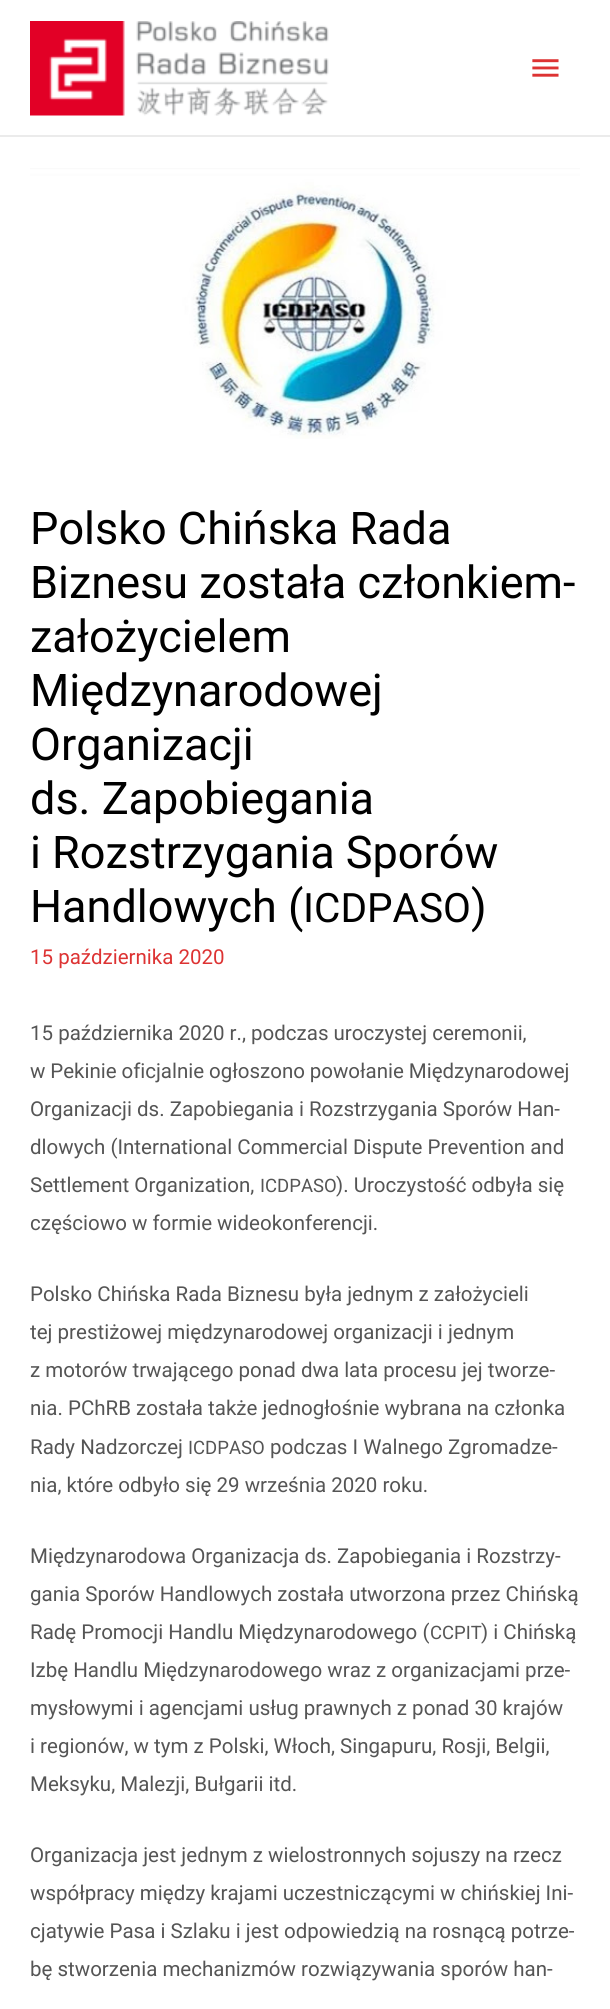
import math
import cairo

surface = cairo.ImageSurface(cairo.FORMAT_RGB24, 610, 2009)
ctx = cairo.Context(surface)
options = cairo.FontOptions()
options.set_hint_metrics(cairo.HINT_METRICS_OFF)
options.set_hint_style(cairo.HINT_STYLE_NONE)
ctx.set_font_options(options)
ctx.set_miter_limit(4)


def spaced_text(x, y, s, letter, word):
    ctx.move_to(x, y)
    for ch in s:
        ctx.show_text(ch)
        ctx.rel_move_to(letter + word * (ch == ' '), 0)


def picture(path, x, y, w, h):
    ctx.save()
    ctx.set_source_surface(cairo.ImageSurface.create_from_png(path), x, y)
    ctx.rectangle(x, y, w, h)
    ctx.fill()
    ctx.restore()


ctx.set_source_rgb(1, 1, 1)
ctx.paint()
ctx.set_source_rgb(0.918, 0.918, 0.918)
ctx.rectangle(0, 135, 610, 2)
ctx.fill()
picture("img1.png", 30, 21, 299, 95)
picture("img2.png", 532, 59, 27, 18)
picture("img3.png", 30, 168, 550, 271)
ctx.select_font_face("Roboto")
ctx.set_font_size(45)
ctx.set_source_rgb(0, 0, 0)
ctx.move_to(30, 544)
ctx.show_text("Polsko Chińska Rada")
ctx.move_to(30, 598)
ctx.show_text("Biznesu została członkiem-")
ctx.move_to(30, 652)
ctx.show_text("założycielem")
ctx.move_to(30, 706)
ctx.show_text("Międzynarodowej")
ctx.move_to(30, 760)
ctx.show_text("Organizacji")
ctx.move_to(30, 814)
ctx.show_text("ds. Zapobiegania")
ctx.move_to(30, 868)
ctx.show_text("i Rozstrzygania Sporów")
ctx.move_to(30, 922)
ctx.show_text("Handlowych (")
ctx.set_font_size(40.5)
ctx.move_to(303, 922)
ctx.show_text("ICDPASO")
ctx.set_font_size(45)
ctx.move_to(471, 922)
ctx.show_text(")")
ctx.set_font_size(20.5)
ctx.set_source_rgb(0.867, 0.2, 0.2)
ctx.move_to(30, 964)
ctx.show_text("15 października 2020")
ctx.set_source_rgb(0.333, 0.333, 0.333)
ctx.move_to(30, 1040)
ctx.show_text("15 października 2020 r., podczas uroczystej ceremonii,")
spaced_text(30, 1078, "w Pekinie oficjalnie ogłoszono powołanie Międzynarodowej", 0, -0.25)
ctx.move_to(30, 1116)
ctx.show_text("Organizacji ds. Zapobiegania i Rozstrzygania Sporów Han-")
ctx.move_to(30, 1154)
ctx.show_text("dlowych (International Commercial Dispute Prevention and")
ctx.move_to(30, 1192)
ctx.show_text("Settlement Organization,")
ctx.set_font_size(18.5)
ctx.move_to(260, 1192)
ctx.show_text("ICDPASO")
ctx.set_font_size(20.5)
ctx.move_to(336, 1192)
ctx.show_text("). Uroczystość odbyła się")
ctx.move_to(30, 1230)
ctx.show_text("częściowo w formie wideokonferencji.")
ctx.move_to(30, 1301)
ctx.show_text("Polsko Chińska Rada Biznesu była jednym z założycieli")
ctx.move_to(30, 1339)
ctx.show_text("tej prestiżowej międzynarodowej organizacji i jednym")
ctx.move_to(30, 1377)
ctx.show_text("z motorów trwającego ponad dwa lata procesu jej tworze-")
ctx.move_to(30, 1415)
ctx.show_text("nia. PChRB została także jednogłośnie wybrana na członka")
ctx.move_to(30, 1454)
ctx.show_text("Rady Nadzorczej")
ctx.set_font_size(18.5)
ctx.move_to(188, 1454)
ctx.show_text("ICDPASO")
ctx.set_font_size(20.5)
ctx.move_to(270, 1454)
ctx.show_text("podczas I Walnego Zgromadze-")
ctx.move_to(30, 1492)
ctx.show_text("nia, które odbyło się 29 września 2020 roku.")
ctx.move_to(30, 1563)
ctx.show_text("Międzynarodowa Organizacja ds. Zapobiegania i Rozstrzy-")
ctx.move_to(30, 1601)
ctx.show_text("gania Sporów Handlowych została utworzona przez Chińską")
ctx.move_to(30, 1639)
ctx.show_text("Radę Promocji Handlu Międzynarodowego (")
ctx.set_font_size(18.5)
ctx.move_to(430, 1639)
ctx.show_text("CCPIT")
ctx.set_font_size(20.5)
ctx.move_to(481, 1639)
ctx.show_text(") i Chińską")
ctx.move_to(30, 1677)
ctx.show_text("Izbę Handlu Międzynarodowego wraz z organizacjami prze-")
ctx.move_to(30, 1715)
ctx.show_text("mysłowymi i agencjami usług prawnych z ponad 30 krajów")
ctx.move_to(30, 1753)
ctx.show_text("i regionów, w tym z Polski, Włoch, Singapuru, Rosji, Belgii,")
ctx.move_to(30, 1791)
ctx.show_text("Meksyku, Malezji, Bułgarii itd.")
ctx.move_to(30, 1862)
ctx.show_text("Organizacja jest jednym z wielostronnych sojuszy na rzecz")
ctx.move_to(30, 1900)
ctx.show_text("współpracy między krajami uczestniczącymi w chińskiej Ini-")
ctx.move_to(30, 1938)
ctx.show_text("cjatywie Pasa i Szlaku i jest odpowiedzią na rosnącą potrze-")
ctx.move_to(30, 1976)
ctx.show_text("bę stworzenia mechanizmów rozwiązywania sporów han-")
surface.write_to_png("page.png")
